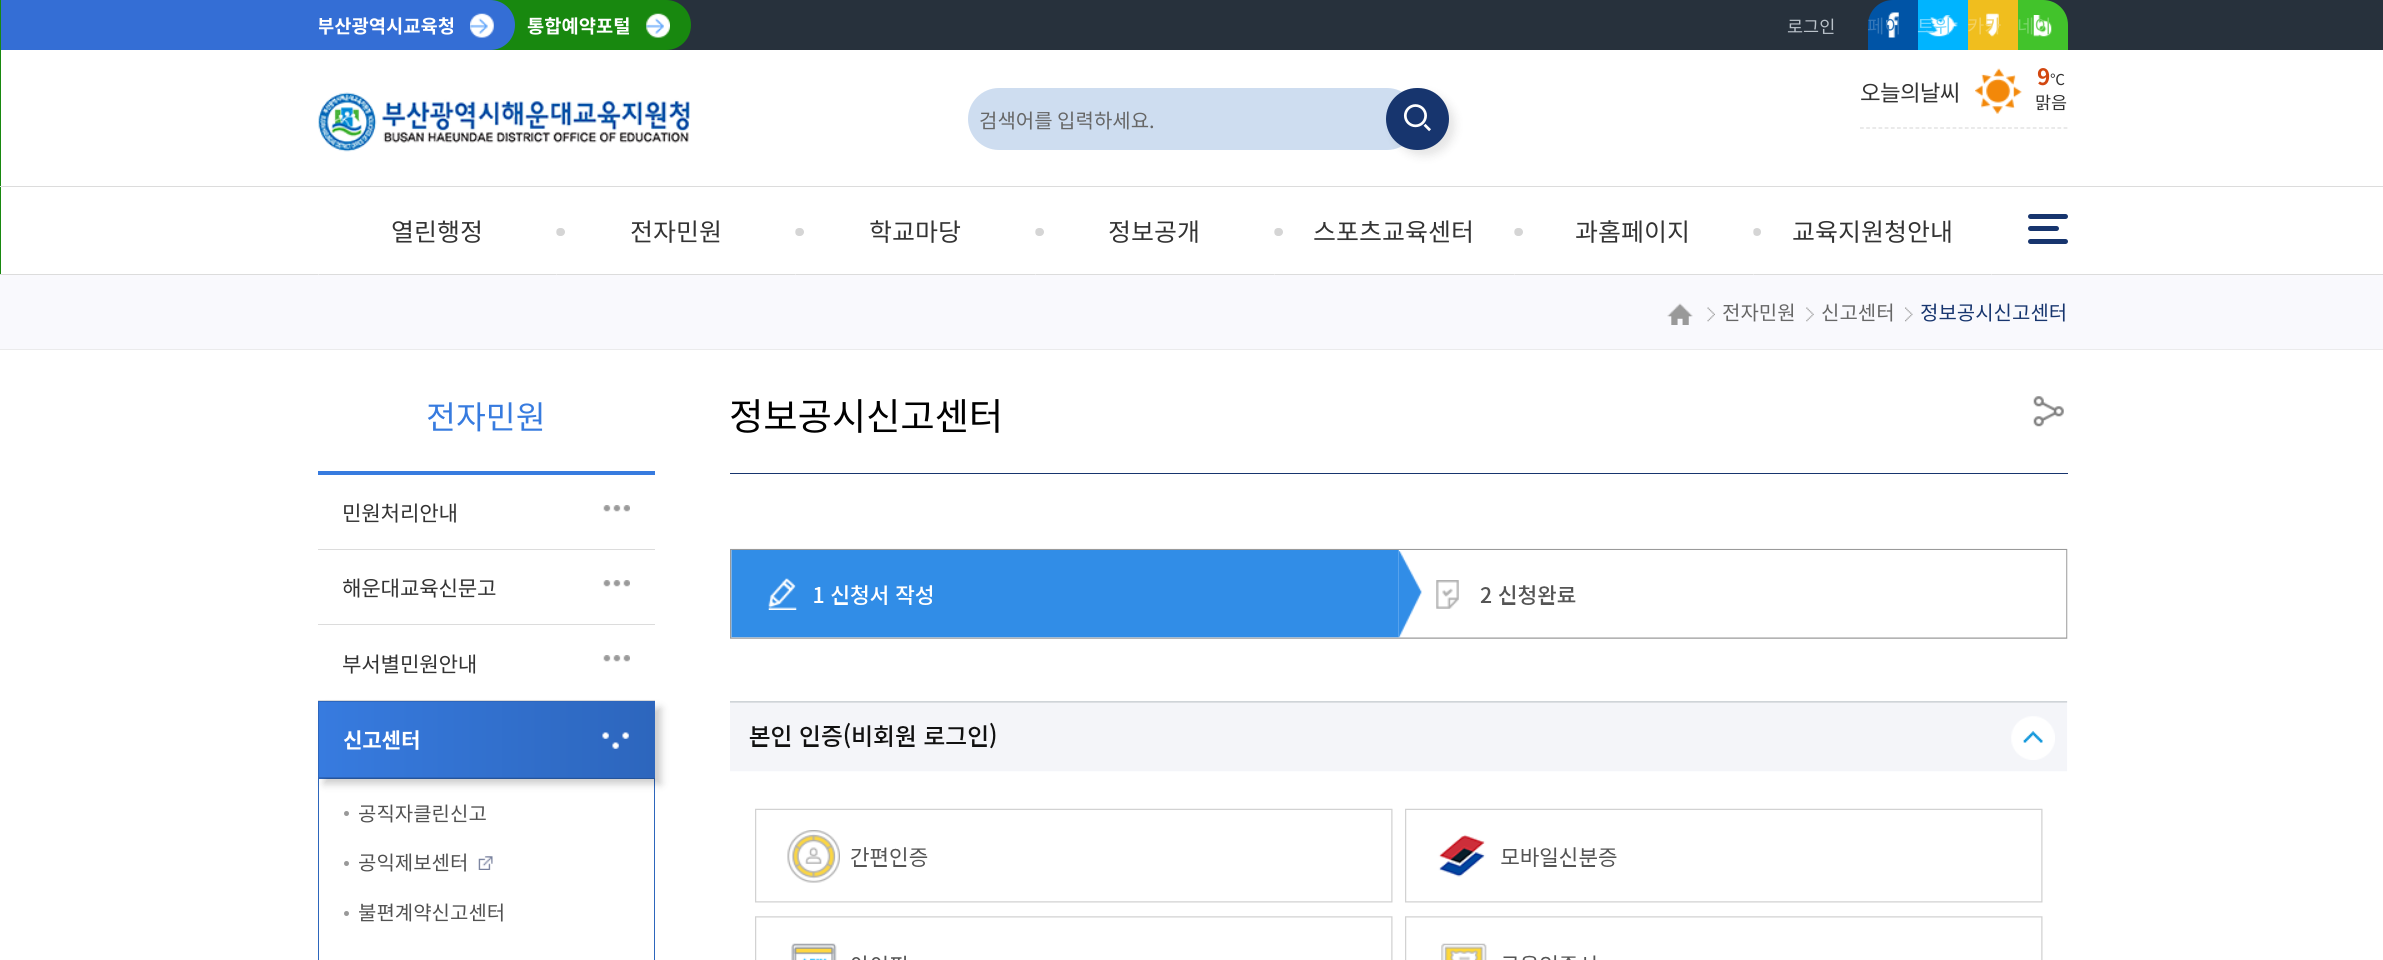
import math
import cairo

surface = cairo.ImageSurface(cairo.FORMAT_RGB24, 2383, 960)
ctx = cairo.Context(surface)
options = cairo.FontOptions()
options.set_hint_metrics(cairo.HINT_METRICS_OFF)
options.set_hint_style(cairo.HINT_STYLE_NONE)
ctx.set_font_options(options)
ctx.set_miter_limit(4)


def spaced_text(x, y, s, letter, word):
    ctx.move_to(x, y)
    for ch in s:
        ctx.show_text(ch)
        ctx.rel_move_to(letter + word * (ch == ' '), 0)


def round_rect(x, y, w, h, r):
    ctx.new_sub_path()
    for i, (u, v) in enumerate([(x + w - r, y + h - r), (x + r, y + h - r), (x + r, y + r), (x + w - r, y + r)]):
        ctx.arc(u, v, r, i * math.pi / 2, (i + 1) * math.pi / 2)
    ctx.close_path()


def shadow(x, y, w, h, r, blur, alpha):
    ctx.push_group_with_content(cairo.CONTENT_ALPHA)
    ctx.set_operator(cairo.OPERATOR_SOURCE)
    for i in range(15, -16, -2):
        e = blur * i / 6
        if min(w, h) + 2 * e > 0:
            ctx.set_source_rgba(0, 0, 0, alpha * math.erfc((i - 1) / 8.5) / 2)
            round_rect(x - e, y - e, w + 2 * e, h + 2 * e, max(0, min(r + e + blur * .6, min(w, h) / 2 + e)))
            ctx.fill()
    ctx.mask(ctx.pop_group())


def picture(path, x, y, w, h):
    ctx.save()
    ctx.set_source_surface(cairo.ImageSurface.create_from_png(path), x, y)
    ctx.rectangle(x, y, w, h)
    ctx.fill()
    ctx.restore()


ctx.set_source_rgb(1, 1, 1)
ctx.paint()
ctx.set_source_rgb(0.863, 0.863, 0.863)
ctx.rectangle(0, 274, 2383, 1)
ctx.fill()
ctx.set_source_rgb(0.906, 0.906, 0.906)
ctx.rectangle(318, 274, 1, 1)
ctx.fill()
ctx.rectangle(1991, 274, 1, 1)
ctx.fill()
ctx.set_source_rgb(0.153, 0.192, 0.235)
ctx.rectangle(666, 0, 1717, 50)
ctx.fill()
ctx.set_source_rgb(0.094, 0.533, 0.059)
ctx.new_path()
ctx.move_to(490, 0)
ctx.line_to(666, 0)
ctx.curve_to(680, 0, 691, 11, 691, 25)
ctx.curve_to(691, 39, 680, 50, 666, 50)
ctx.line_to(490, 50)
ctx.close_path()
ctx.fill()
ctx.set_source_rgb(0.204, 0.431, 0.835)
ctx.new_path()
ctx.move_to(318, 0)
ctx.line_to(490, 0)
ctx.curve_to(504, 0, 515, 11, 515, 25)
ctx.curve_to(515, 39, 504, 50, 490, 50)
ctx.line_to(318, 50)
ctx.close_path()
ctx.fill()
picture("img1.png", 470, 13, 24, 25)
ctx.select_font_face("Noto Sans KR", cairo.FONT_SLANT_NORMAL, cairo.FONT_WEIGHT_BOLD)
ctx.set_font_size(18.75)
ctx.set_source_rgb(1, 1, 1)
ctx.move_to(317, 33)
ctx.show_text("부산광역시교육청")
ctx.set_source_rgb(0.204, 0.431, 0.835)
ctx.rectangle(1, 0, 318, 50)
ctx.fill()
picture("img2.png", 646, 13, 24, 25)
ctx.set_source_rgb(0.094, 0.533, 0.059)
ctx.rectangle(0, 0, 1, 274)
ctx.fill()
ctx.set_source_rgb(1, 1, 1)
ctx.move_to(527, 33)
ctx.show_text("통합예약포털")
ctx.select_font_face("Noto Sans KR")
ctx.set_font_size(17.5)
ctx.set_source_rgb(0.729, 0.761, 0.792)
ctx.move_to(1787, 33)
ctx.show_text("로그인")
ctx.set_source_rgb(0, 0.329, 0.651)
ctx.new_path()
ctx.move_to(1893, 0)
ctx.line_to(1918, 0)
ctx.line_to(1918, 50)
ctx.line_to(1868, 50)
ctx.line_to(1868, 25)
ctx.curve_to(1868, 11, 1879, 0, 1893, 0)
ctx.close_path()
ctx.fill()
picture("img3.png", 1886, 12, 13, 26)
ctx.save()
ctx.new_path()
ctx.move_to(1893, 0)
ctx.line_to(1918, 0)
ctx.line_to(1918, 50)
ctx.line_to(1868, 50)
ctx.line_to(1868, 25)
ctx.curve_to(1868, 11, 1879, 0, 1893, 0)
ctx.close_path()
ctx.clip()
ctx.set_font_size(18.75)
ctx.set_source_rgb(0.208, 0.467, 0.722)
ctx.move_to(1867, 33)
ctx.show_text("페이")
ctx.restore()
ctx.set_source_rgb(0, 0.706, 1)
ctx.rectangle(1918, 0, 50, 50)
ctx.fill()
picture("img4.png", 1926, 15, 32, 22)
ctx.set_font_size(18.75)
ctx.set_source_rgb(0.447, 0.839, 1)
ctx.move_to(1917, 33)
ctx.show_text("트위")
ctx.set_source_rgb(0.941, 0.745, 0.118)
ctx.rectangle(1968, 0, 50, 50)
ctx.fill()
picture("img5.png", 1986, 13, 13, 24)
ctx.set_source_rgb(0.957, 0.82, 0.38)
ctx.move_to(1967, 33)
ctx.show_text("카카")
ctx.set_source_rgb(0.259, 0.765, 0.169)
ctx.new_path()
ctx.move_to(2018, 0)
ctx.line_to(2043, 0)
ctx.curve_to(2057, 0, 2068, 11, 2068, 25)
ctx.line_to(2068, 50)
ctx.line_to(2018, 50)
ctx.close_path()
ctx.fill()
picture("img6.png", 2033, 15, 19, 22)
ctx.set_source_rgb(0.478, 0.835, 0.412)
ctx.move_to(2017, 33)
ctx.show_text("네이")
ctx.set_source_rgb(0.863, 0.863, 0.863)
ctx.rectangle(0, 186, 2383, 1)
ctx.fill()
picture("img7.png", 318, 92, 372, 60)
ctx.set_source_rgb(0.808, 0.867, 0.941)
round_rect(968, 88, 450, 62, 31)
ctx.fill()
ctx.set_font_size(20)
ctx.set_source_rgb(0.4, 0.4, 0.4)
ctx.move_to(979, 128)
ctx.show_text("검색어를 입력하세요.")
ctx.set_source_rgb(0, 0, 0)
shadow(1393, 94, 62, 62, 31, 4.5, 0.1)
ctx.set_source_rgb(0.09, 0.208, 0.431)
round_rect(1386, 88, 63, 62, 31)
ctx.fill()
picture("img8.png", 1403, 104, 28, 28)
ctx.set_font_size(22.5)
ctx.set_source_rgb(0.2, 0.2, 0.2)
spaced_text(1860, 101, "오늘의날씨", -0.75, 0)
picture("img9.png", 1975, 68, 47, 46)
ctx.select_font_face("Noto Sans KR", cairo.FONT_SLANT_NORMAL, cairo.FONT_WEIGHT_BOLD)
ctx.set_source_rgb(0.824, 0.278, 0.063)
ctx.move_to(2037, 85)
ctx.show_text("9")
ctx.select_font_face("Noto Sans KR")
ctx.set_font_size(15)
ctx.set_source_rgb(0.2, 0.2, 0.2)
ctx.move_to(2050, 85)
ctx.show_text("℃")
ctx.set_font_size(17.5)
ctx.move_to(2035, 109)
ctx.show_text("맑음")
ctx.new_path()
ctx.move_to(1860, 128)
ctx.line_to(2067.5, 128)
ctx.set_source_rgb(0.863, 0.863, 0.863)
ctx.set_line_width(1.2)
ctx.set_dash([3.75, 2.42])
ctx.stroke()
ctx.set_font_size(25)
ctx.set_source_rgb(0.2, 0.2, 0.2)
ctx.move_to(391, 241)
ctx.show_text("열린행정")
ctx.set_source_rgb(0.835, 0.835, 0.835)
round_rect(556, 228, 9, 8, 4)
ctx.fill()
ctx.set_source_rgba(1, 1, 1, 0.3)
ctx.rectangle(556, 230, 1, 45)
ctx.fill()
ctx.set_source_rgb(0.2, 0.2, 0.2)
ctx.move_to(630, 241)
ctx.show_text("전자민원")
ctx.set_source_rgb(0.835, 0.835, 0.835)
round_rect(795, 228, 9, 8, 4)
ctx.fill()
ctx.set_source_rgba(1, 1, 1, 0.3)
ctx.rectangle(795, 230, 1, 45)
ctx.fill()
ctx.set_source_rgb(0.2, 0.2, 0.2)
ctx.move_to(869, 241)
ctx.show_text("학교마당")
ctx.set_source_rgb(0.835, 0.835, 0.835)
round_rect(1035, 228, 9, 8, 4)
ctx.fill()
ctx.set_source_rgba(1, 1, 1, 0.3)
ctx.rectangle(1035, 230, 1, 45)
ctx.fill()
ctx.set_source_rgb(0.2, 0.2, 0.2)
ctx.move_to(1108, 241)
ctx.show_text("정보공개")
ctx.set_source_rgb(0.835, 0.835, 0.835)
round_rect(1274, 228, 9, 8, 4)
ctx.fill()
ctx.set_source_rgba(1, 1, 1, 0.3)
ctx.rectangle(1274, 230, 1, 45)
ctx.fill()
ctx.set_source_rgb(0.2, 0.2, 0.2)
ctx.move_to(1313, 241)
ctx.show_text("스포츠교육센터")
ctx.set_source_rgb(0.835, 0.835, 0.835)
round_rect(1514, 228, 9, 8, 4)
ctx.fill()
ctx.set_source_rgba(1, 1, 1, 0.3)
ctx.rectangle(1514, 230, 1, 45)
ctx.fill()
ctx.set_source_rgb(0.2, 0.2, 0.2)
ctx.move_to(1575, 241)
ctx.show_text("과홈페이지")
ctx.set_source_rgb(0.835, 0.835, 0.835)
ctx.new_path()
ctx.arc(1757, 232, 4, 0, 2 * math.pi)
ctx.fill()
ctx.set_source_rgba(1, 1, 1, 0.3)
ctx.rectangle(1753, 230, 1, 45)
ctx.fill()
ctx.set_source_rgb(0.2, 0.2, 0.2)
ctx.move_to(1792, 241)
ctx.show_text("교육지원청안내")
ctx.set_source_rgb(0.09, 0.208, 0.431)
round_rect(2028, 214, 40, 5, 2.5)
ctx.fill()
round_rect(2028, 226, 31, 5, 2.5)
ctx.fill()
round_rect(2028, 239, 40, 5, 2.5)
ctx.fill()
ctx.set_source_rgb(0.973, 0.976, 0.992)
ctx.rectangle(0, 275, 2383, 74)
ctx.fill()
ctx.set_source_rgb(0.918, 0.918, 0.925)
ctx.rectangle(0, 349, 2383, 1)
ctx.fill()
ctx.set_source_rgb(0.09, 0.208, 0.431)
ctx.rectangle(730, 473, 1338, 1)
ctx.fill()
picture("img10.png", 1667, 303, 26, 22)
picture("img11.png", 1707, 307, 8, 15)
ctx.set_font_size(20)
ctx.set_source_rgb(0.4, 0.4, 0.4)
ctx.move_to(1722, 320)
ctx.show_text("전자민원")
picture("img12.png", 1806, 307, 8, 15)
ctx.move_to(1821, 320)
ctx.show_text("신고센터")
picture("img13.png", 1905, 307, 8, 15)
ctx.set_source_rgb(0.09, 0.208, 0.431)
ctx.move_to(1920, 320)
ctx.show_text("정보공시신고센터")
ctx.set_font_size(37.5)
ctx.set_source_rgb(0, 0, 0)
spaced_text(729, 430, "정보공시신고센터", -0.25, 0)
picture("img14.png", 2033, 396, 31, 31)
picture("img15.png", 730, 548, 1338, 412)
ctx.set_source_rgb(0.216, 0.482, 0.875)
ctx.rectangle(318, 471, 337, 4)
ctx.fill()
ctx.set_font_size(32.5)
ctx.move_to(426, 429)
ctx.show_text("전자민원")
ctx.set_source_rgb(0.863, 0.863, 0.863)
ctx.rectangle(318, 549, 337, 1)
ctx.fill()
ctx.set_font_size(21.25)
ctx.set_source_rgb(0.2, 0.2, 0.2)
spaced_text(342, 521, "민원처리안내", -0.25, 0)
picture("img16.png", 603, 505, 27, 7)
ctx.set_source_rgb(0.863, 0.863, 0.863)
ctx.rectangle(318, 624, 337, 1)
ctx.fill()
ctx.set_source_rgb(0.2, 0.2, 0.2)
spaced_text(342, 596, "해운대교육신문고", -0.25, 0)
picture("img16.png", 603, 580, 27, 7)
ctx.set_source_rgb(0.863, 0.863, 0.863)
ctx.rectangle(318, 700, 337, 1)
ctx.fill()
ctx.set_source_rgb(0.2, 0.2, 0.2)
spaced_text(342, 672, "부서별민원안내", -0.25, 0)
picture("img16.png", 603, 655, 27, 7)
ctx.rectangle(318.5, 778.5, 336, 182)
ctx.set_source_rgb(0.176, 0.4, 0.737)
ctx.set_line_width(1)
ctx.set_dash([])
ctx.stroke()
ctx.set_source_rgb(0, 0, 0)
shadow(324, 708, 337, 76, 0, 4, 0.2)
gradient = cairo.LinearGradient(319, 739, 654, 739)
gradient.add_color_stop_rgba(0, 0.216, 0.482, 0.875, 1)
gradient.add_color_stop_rgba(1, 0.176, 0.4, 0.741, 1)
ctx.set_source(gradient)
ctx.rectangle(319, 702, 335, 75)
ctx.fill()
ctx.rectangle(318.5, 701.5, 336, 76)
ctx.set_source_rgb(0.176, 0.4, 0.741)
ctx.stroke()
ctx.select_font_face("Noto Sans KR", cairo.FONT_SLANT_NORMAL, cairo.FONT_WEIGHT_BOLD)
ctx.set_source_rgb(1, 1, 1)
spaced_text(343, 748, "신고센터", -0.25, 0)
picture("img17.png", 602, 732, 27, 17)
ctx.set_source_rgb(0.6, 0.6, 0.6)
ctx.arc(346.5, 813.5, 2.5, 0, 2 * math.pi)
ctx.fill()
ctx.select_font_face("Noto Sans KR")
ctx.set_font_size(20)
ctx.set_source_rgb(0.318, 0.318, 0.318)
ctx.move_to(358, 821)
ctx.show_text("공직자클린신고")
ctx.set_source_rgb(0.6, 0.6, 0.6)
ctx.new_path()
ctx.arc(346.5, 863.5, 2.5, 0, 2 * math.pi)
ctx.fill()
ctx.set_source_rgb(0.318, 0.318, 0.318)
ctx.move_to(358, 870)
ctx.show_text("공익제보센터")
picture("img18.png", 478, 856, 15, 14)
ctx.set_source_rgb(0.6, 0.6, 0.6)
ctx.arc(346.5, 913.5, 2.5, 0, 2 * math.pi)
ctx.fill()
ctx.set_source_rgb(0.318, 0.318, 0.318)
ctx.move_to(358, 920)
ctx.show_text("불편계약신고센터")
surface.write_to_png("page.png")
